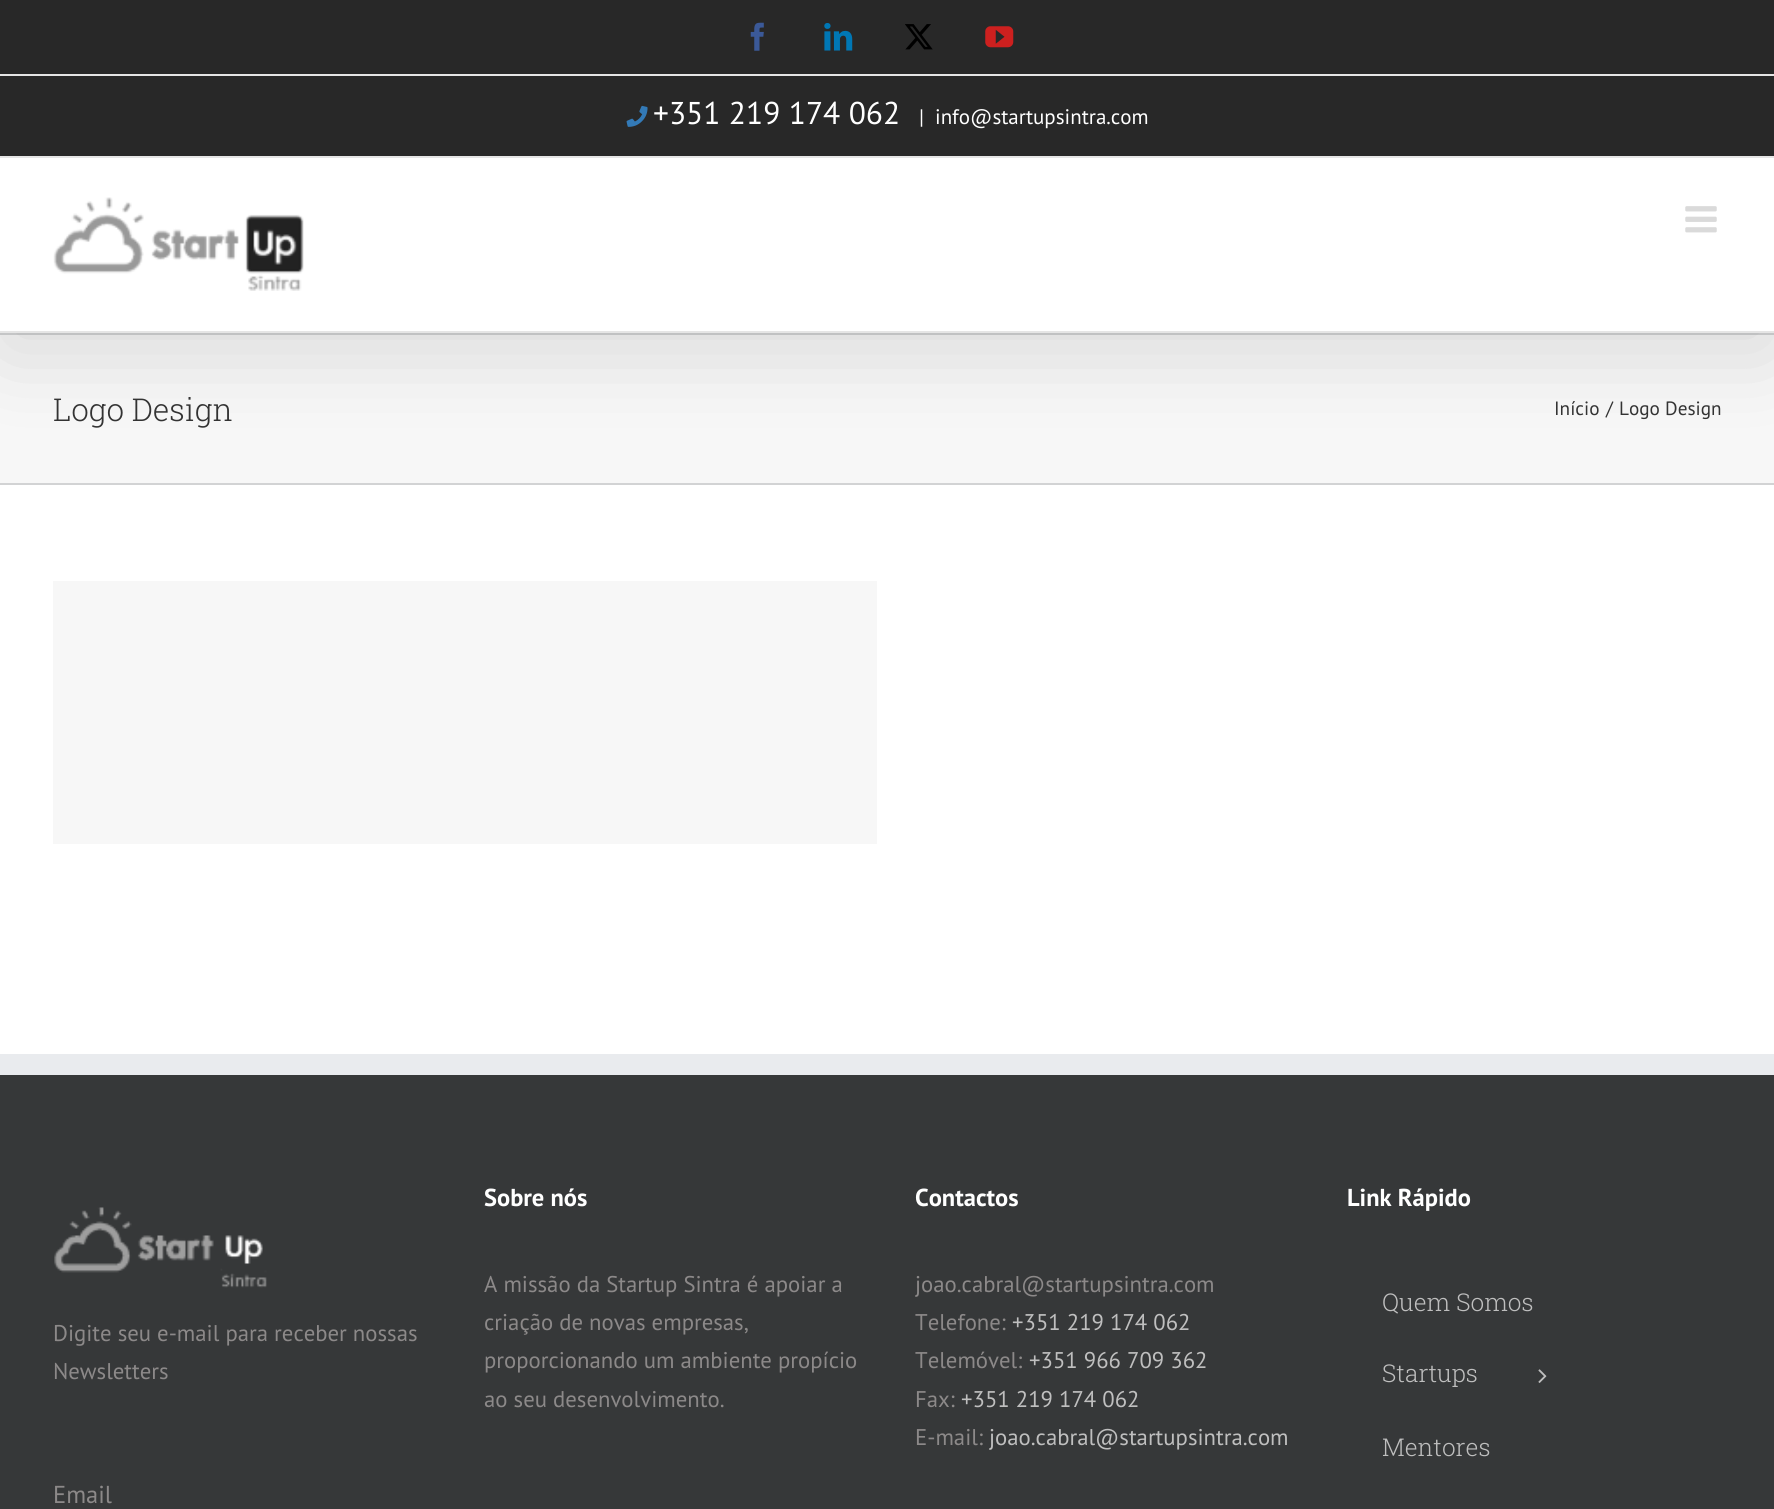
import math
import cairo

surface = cairo.ImageSurface(cairo.FORMAT_RGB24, 1774, 1509)
ctx = cairo.Context(surface)
options = cairo.FontOptions()
options.set_hint_metrics(cairo.HINT_METRICS_OFF)
options.set_hint_style(cairo.HINT_STYLE_NONE)
ctx.set_font_options(options)
ctx.set_miter_limit(4)


def round_rect(x, y, w, h, r):
    ctx.new_sub_path()
    for i, (u, v) in enumerate([(x + w - r, y + h - r), (x + r, y + h - r), (x + r, y + r), (x + w - r, y + r)]):
        ctx.arc(u, v, r, i * math.pi / 2, (i + 1) * math.pi / 2)
    ctx.close_path()


def shadow(x, y, w, h, r, blur, alpha):
    ctx.push_group_with_content(cairo.CONTENT_ALPHA)
    ctx.set_operator(cairo.OPERATOR_SOURCE)
    for i in range(15, -16, -2):
        e = blur * i / 6
        if min(w, h) + 2 * e > 0:
            ctx.set_source_rgba(0, 0, 0, alpha * math.erfc((i - 1) / 8.5) / 2)
            round_rect(x - e, y - e, w + 2 * e, h + 2 * e, max(0, min(r + e + blur * .6, min(w, h) / 2 + e)))
            ctx.fill()
    ctx.mask(ctx.pop_group())


def picture(path, x, y, w, h):
    ctx.save()
    ctx.set_source_surface(cairo.ImageSurface.create_from_png(path), x, y)
    ctx.rectangle(x, y, w, h)
    ctx.fill()
    ctx.restore()


ctx.set_source_rgb(1, 1, 1)
ctx.paint()
ctx.set_source_rgb(0.965, 0.965, 0.965)
ctx.rectangle(0, 335, 1774, 148)
ctx.fill()
ctx.set_source_rgb(0.824, 0.827, 0.831)
ctx.rectangle(0, 333, 1774, 2)
ctx.fill()
ctx.set_source_rgb(0, 0, 0)
shadow(4, 21, 1767, 326, 0, 44, 0.14)
ctx.set_source_rgb(0.157, 0.157, 0.157)
ctx.rectangle(0, 0, 1774, 156)
ctx.fill()
ctx.set_source_rgb(0.898, 0.898, 0.898)
ctx.rectangle(0, 156, 1774, 2)
ctx.fill()
ctx.rectangle(0, 74, 1774, 2)
ctx.fill()
picture("img1.png", 750, 22, 14, 29)
picture("img2.png", 824, 23, 29, 28)
picture("img3.png", 905, 24, 28, 26)
picture("img4.png", 985, 26, 29, 22)
picture("img5.png", 626, 105, 22, 22)
ctx.select_font_face("PT Sans")
ctx.set_font_size(31.5)
ctx.set_source_rgb(1, 1, 1)
ctx.move_to(653, 124)
ctx.show_text("+351 219 174 062")
ctx.set_font_size(21)
ctx.move_to(919, 124)
ctx.show_text("|")
ctx.move_to(935, 124)
ctx.show_text("info@startupsintra.com")
ctx.rectangle(0, 158, 1774, 173)
ctx.fill()
ctx.set_source_rgb(0.898, 0.898, 0.898)
ctx.rectangle(0, 331, 1774, 2)
ctx.fill()
picture("img6.png", 53, 197, 251, 94)
picture("img7.png", 1685, 206, 32, 27)
ctx.set_source_rgb(0.824, 0.827, 0.831)
ctx.rectangle(0, 483, 1774, 2)
ctx.fill()
ctx.select_font_face("Roboto Slab Light")
ctx.set_font_size(31.5)
ctx.set_source_rgb(0.2, 0.2, 0.2)
ctx.move_to(53, 421)
ctx.show_text("Logo Design")
ctx.select_font_face("PT Sans")
ctx.set_font_size(19.25)
ctx.move_to(1554, 415)
ctx.show_text("Início")
ctx.move_to(1606, 415)
ctx.show_text("/")
ctx.move_to(1619, 415)
ctx.show_text("Logo Design")
ctx.set_source_rgb(0.965, 0.965, 0.965)
ctx.rectangle(53, 581, 824, 263)
ctx.fill()
ctx.set_source_rgb(0.212, 0.22, 0.224)
ctx.rectangle(0, 1075, 1774, 434)
ctx.fill()
ctx.set_source_rgb(0.914, 0.918, 0.933)
ctx.rectangle(0, 1054, 1774, 21)
ctx.fill()
picture("img8.png", 54, 1207, 213, 81)
ctx.set_font_size(22.75)
ctx.set_source_rgb(0.549, 0.537, 0.537)
ctx.move_to(53, 1341)
ctx.show_text("Digite seu e-mail para receber nossas")
ctx.move_to(53, 1379)
ctx.show_text("Newsletters")
ctx.set_font_size(24.5)
ctx.move_to(53, 1503)
ctx.show_text("Email")
ctx.select_font_face("PT Sans", cairo.FONT_SLANT_NORMAL, cairo.FONT_WEIGHT_BOLD)
ctx.set_source_rgb(1, 1, 1)
ctx.move_to(484, 1206)
ctx.show_text("Sobre nós")
ctx.select_font_face("PT Sans")
ctx.set_font_size(22.75)
ctx.set_source_rgb(0.549, 0.537, 0.537)
ctx.move_to(484, 1292)
ctx.show_text("A missão da Startup Sintra é apoiar a")
ctx.move_to(484, 1330)
ctx.show_text("criação de novas empresas,")
ctx.move_to(484, 1368)
ctx.show_text("proporcionando um ambiente propício")
ctx.move_to(484, 1407)
ctx.show_text("ao seu desenvolvimento.")
ctx.select_font_face("PT Sans", cairo.FONT_SLANT_NORMAL, cairo.FONT_WEIGHT_BOLD)
ctx.set_font_size(24.5)
ctx.set_source_rgb(1, 1, 1)
ctx.move_to(915, 1206)
ctx.show_text("Contactos")
ctx.select_font_face("PT Sans")
ctx.set_font_size(22.75)
ctx.set_source_rgb(0.549, 0.537, 0.537)
ctx.move_to(915, 1292)
ctx.show_text("joao.cabral@startupsintra.com")
ctx.move_to(915, 1330)
ctx.show_text("Telefone:")
ctx.set_source_rgb(0.749, 0.749, 0.749)
ctx.move_to(1012, 1330)
ctx.show_text("+351 219 174 062")
ctx.set_source_rgb(0.549, 0.537, 0.537)
ctx.move_to(915, 1368)
ctx.show_text("Telemóvel:")
ctx.set_source_rgb(0.749, 0.749, 0.749)
ctx.move_to(1029, 1368)
ctx.show_text("+351 966 709 362")
ctx.set_source_rgb(0.549, 0.537, 0.537)
ctx.move_to(915, 1407)
ctx.show_text("Fax:")
ctx.set_source_rgb(0.749, 0.749, 0.749)
ctx.move_to(961, 1407)
ctx.show_text("+351 219 174 062")
ctx.set_source_rgb(0.549, 0.537, 0.537)
ctx.move_to(915, 1445)
ctx.show_text("E-mail:")
ctx.set_source_rgb(0.749, 0.749, 0.749)
ctx.move_to(989, 1445)
ctx.show_text("joao.cabral@startupsintra.com")
ctx.select_font_face("PT Sans", cairo.FONT_SLANT_NORMAL, cairo.FONT_WEIGHT_BOLD)
ctx.set_font_size(24.5)
ctx.set_source_rgb(1, 1, 1)
ctx.move_to(1347, 1206)
ctx.show_text("Link Rápido")
ctx.select_font_face("Roboto Slab Light")
ctx.set_source_rgb(0.749, 0.749, 0.749)
ctx.move_to(1382, 1311)
ctx.show_text("Quem Somos")
ctx.move_to(1382, 1382)
ctx.show_text("Startups")
picture("img9.png", 1538, 1369, 9, 14)
ctx.move_to(1382, 1456)
ctx.show_text("Mentores")
surface.write_to_png("page.png")
